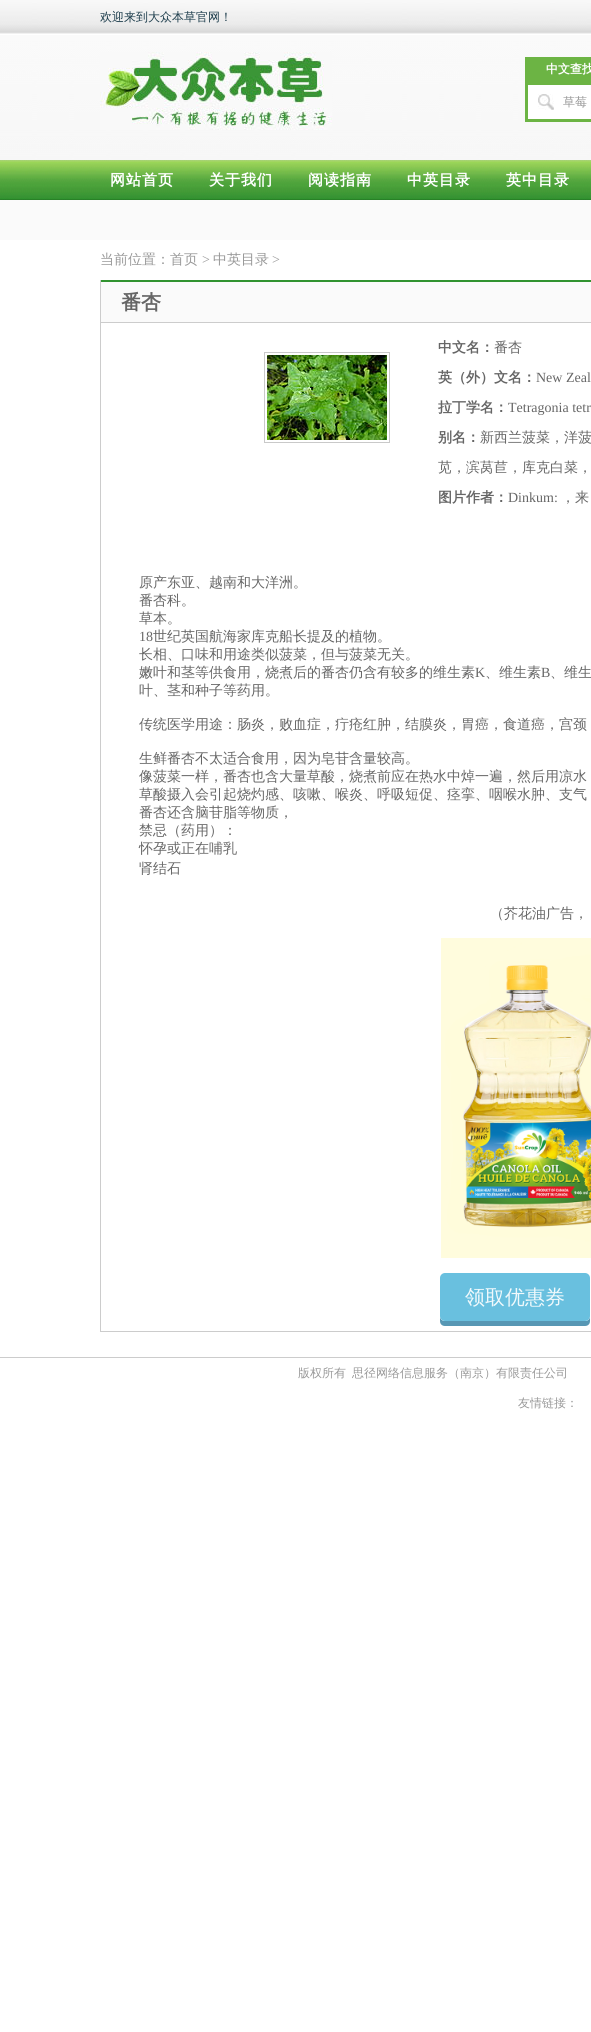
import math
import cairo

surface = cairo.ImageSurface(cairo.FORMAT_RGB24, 591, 2032)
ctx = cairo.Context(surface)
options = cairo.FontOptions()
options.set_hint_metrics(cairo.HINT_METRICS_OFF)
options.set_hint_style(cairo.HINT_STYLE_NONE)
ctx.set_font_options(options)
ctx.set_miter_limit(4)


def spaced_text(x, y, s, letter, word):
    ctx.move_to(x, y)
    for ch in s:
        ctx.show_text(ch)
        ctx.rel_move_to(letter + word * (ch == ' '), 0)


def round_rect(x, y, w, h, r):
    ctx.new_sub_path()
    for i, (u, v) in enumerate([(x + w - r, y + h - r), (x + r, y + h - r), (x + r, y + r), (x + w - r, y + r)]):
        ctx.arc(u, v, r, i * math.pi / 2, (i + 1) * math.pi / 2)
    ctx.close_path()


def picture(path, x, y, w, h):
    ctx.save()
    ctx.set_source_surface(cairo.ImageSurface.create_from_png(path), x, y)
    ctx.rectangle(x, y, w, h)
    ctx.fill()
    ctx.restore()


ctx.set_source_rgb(1, 1, 1)
ctx.paint()
picture("img1.png", 0, 0, 591, 160)
ctx.select_font_face("WenQuanYi Zen Hei Medium")
ctx.set_font_size(12)
ctx.set_source_rgb(0.114, 0.239, 0.298)
ctx.move_to(100, 21)
ctx.show_text("欢迎来到大众本草官网！")
picture("img2.png", 100, 52, 232, 78)
ctx.set_source_rgb(0.424, 0.706, 0.267)
ctx.rectangle(525, 57, 66, 65)
ctx.fill()
ctx.select_font_face("WenQuanYi Zen Hei", cairo.FONT_SLANT_NORMAL, cairo.FONT_WEIGHT_BOLD)
ctx.set_source_rgb(1, 1, 1)
ctx.move_to(546, 73)
ctx.show_text("中文查找")
ctx.rectangle(528, 85, 63, 34)
ctx.fill()
picture("img3.png", 538, 94, 16, 16)
ctx.select_font_face("WenQuanYi Zen Hei Medium")
ctx.set_source_rgb(0.6, 0.6, 0.6)
ctx.move_to(563, 106)
ctx.show_text("草莓")
picture("img4.png", 0, 160, 591, 40)
ctx.select_font_face("WenQuanYi Zen Hei", cairo.FONT_SLANT_NORMAL, cairo.FONT_WEIGHT_BOLD)
ctx.set_font_size(15)
ctx.set_source_rgb(1, 1, 1)
spaced_text(110, 185, "网站首页", 1, 0)
spaced_text(209, 185, "关于我们", 1, 0)
spaced_text(308, 185, "阅读指南", 1, 0)
spaced_text(407, 185, "中英目录", 1, 0)
spaced_text(506, 185, "英中目录", 1, 0)
ctx.set_source_rgb(0.98, 0.98, 0.98)
ctx.rectangle(0, 200, 591, 40)
ctx.fill()
ctx.select_font_face("WenQuanYi Zen Hei Medium")
ctx.set_font_size(14)
ctx.set_source_rgb(0.6, 0.6, 0.6)
ctx.move_to(100, 264)
ctx.show_text("当前位置：首页")
ctx.select_font_face("Liberation Serif")
ctx.move_to(202, 264)
ctx.show_text(">")
ctx.select_font_face("WenQuanYi Zen Hei Medium")
ctx.move_to(213, 264)
ctx.show_text("中英目录")
ctx.select_font_face("Liberation Serif")
ctx.move_to(272, 264)
ctx.show_text(">")
ctx.set_source_rgb(0.8, 0.8, 0.8)
ctx.rectangle(100, 1331, 491, 1)
ctx.fill()
ctx.rectangle(100, 280, 1, 1052)
ctx.fill()
ctx.set_source_rgb(0.98, 0.98, 0.98)
ctx.rectangle(101, 282, 490, 40)
ctx.fill()
ctx.set_source_rgb(0.192, 0.576, 0.188)
ctx.rectangle(101, 280, 490, 2)
ctx.fill()
ctx.set_source_rgb(0.8, 0.8, 0.8)
ctx.rectangle(101, 322, 490, 1)
ctx.fill()
ctx.select_font_face("WenQuanYi Zen Hei", cairo.FONT_SLANT_NORMAL, cairo.FONT_WEIGHT_BOLD)
ctx.set_font_size(20)
ctx.set_source_rgb(0.4, 0.4, 0.4)
ctx.move_to(121, 309)
ctx.show_text("番杏")
ctx.rectangle(264.5, 352.5, 125, 90)
ctx.set_source_rgb(0.788, 0.788, 0.788)
ctx.set_line_width(1)
ctx.stroke()
picture("img5.png", 267, 355, 120, 85)
ctx.set_font_size(14)
ctx.set_source_rgb(0.4, 0.4, 0.4)
ctx.move_to(438, 352)
ctx.show_text("中文名：")
ctx.select_font_face("WenQuanYi Zen Hei Medium")
ctx.move_to(494, 352)
ctx.show_text("番杏")
ctx.select_font_face("WenQuanYi Zen Hei", cairo.FONT_SLANT_NORMAL, cairo.FONT_WEIGHT_BOLD)
ctx.move_to(438, 382)
ctx.show_text("英（外）文名：")
ctx.select_font_face("Liberation Serif")
ctx.move_to(536, 382)
ctx.show_text("New Zeal")
ctx.select_font_face("WenQuanYi Zen Hei", cairo.FONT_SLANT_NORMAL, cairo.FONT_WEIGHT_BOLD)
ctx.move_to(438, 412)
ctx.show_text("拉丁学名：")
ctx.select_font_face("Liberation Serif")
ctx.move_to(508, 412)
ctx.show_text("Tetragonia tetr")
ctx.select_font_face("WenQuanYi Zen Hei", cairo.FONT_SLANT_NORMAL, cairo.FONT_WEIGHT_BOLD)
ctx.move_to(438, 442)
ctx.show_text("别名：")
ctx.select_font_face("WenQuanYi Zen Hei Medium")
ctx.move_to(480, 442)
ctx.show_text("新西兰菠菜，洋菠")
ctx.move_to(438, 472)
ctx.show_text("苋，滨莴苣，库克白菜，")
ctx.select_font_face("WenQuanYi Zen Hei", cairo.FONT_SLANT_NORMAL, cairo.FONT_WEIGHT_BOLD)
ctx.move_to(438, 502)
ctx.show_text("图片作者：")
ctx.select_font_face("Liberation Serif")
ctx.move_to(508, 502)
ctx.show_text("Dinkum:")
ctx.select_font_face("WenQuanYi Zen Hei Medium")
ctx.move_to(561, 502)
ctx.show_text("，来")
ctx.move_to(139, 587)
ctx.show_text("原产东亚、越南和大洋洲。")
ctx.move_to(139, 605)
ctx.show_text("番杏科。")
ctx.move_to(139, 623)
ctx.show_text("草本。")
ctx.select_font_face("Liberation Serif")
ctx.move_to(139, 641)
ctx.show_text("18")
ctx.select_font_face("WenQuanYi Zen Hei Medium")
ctx.move_to(153, 641)
ctx.show_text("世纪英国航海家库克船长提及的植物。")
ctx.move_to(139, 659)
ctx.show_text("长相、口味和用途类似菠菜，但与菠菜无关。")
ctx.move_to(139, 677)
ctx.show_text("嫩叶和茎等供食用，烧煮后的番杏仍含有较多的维生素")
ctx.select_font_face("Liberation Serif")
ctx.move_to(475, 677)
ctx.show_text("K")
ctx.select_font_face("WenQuanYi Zen Hei Medium")
ctx.move_to(485, 677)
ctx.show_text("、维生素")
ctx.select_font_face("Liberation Serif")
ctx.move_to(541, 677)
ctx.show_text("B")
ctx.select_font_face("WenQuanYi Zen Hei Medium")
ctx.move_to(550, 677)
ctx.show_text("、维生")
ctx.move_to(139, 695)
ctx.show_text("叶、茎和种子等药用。")
ctx.move_to(139, 729)
ctx.show_text("传统医学用途：肠炎，败血症，疔疮红肿，结膜炎，胃癌，食道癌，宫颈")
ctx.move_to(139, 763)
ctx.show_text("生鲜番杏不太适合食用，因为皂苷含量较高。")
ctx.move_to(139, 781)
ctx.show_text("像菠菜一样，番杏也含大量草酸，烧煮前应在热水中焯一遍，然后用凉水")
ctx.move_to(139, 799)
ctx.show_text("草酸摄入会引起烧灼感、咳嗽、喉炎、呼吸短促、痉挛、咽喉水肿、支气")
ctx.move_to(139, 817)
ctx.show_text("番杏还含脑苷脂等物质，")
ctx.move_to(139, 835)
ctx.show_text("禁忌（药用）：")
ctx.move_to(139, 853)
ctx.show_text("怀孕或正在哺乳")
ctx.move_to(139, 873)
ctx.show_text("肾结石")
ctx.move_to(490, 918)
ctx.show_text("（芥花油广告，")
picture("img6.png", 441, 938, 150, 320)
ctx.set_source_rgb(0.341, 0.592, 0.706)
ctx.new_path()
ctx.move_to(440, 1316)
ctx.line_to(440, 1321)
ctx.curve_to(440, 1324, 442, 1326, 445, 1326)
ctx.line_to(585, 1326)
ctx.curve_to(588, 1326, 590, 1324, 590, 1321)
ctx.line_to(590, 1316)
ctx.curve_to(590, 1319, 588, 1321, 585, 1321)
ctx.line_to(445, 1321)
ctx.curve_to(442, 1321, 440, 1319, 440, 1316)
ctx.close_path()
ctx.fill()
ctx.set_source_rgb(0.412, 0.753, 0.875)
round_rect(440, 1273, 150, 48, 5)
ctx.fill()
ctx.set_font_size(20)
ctx.set_source_rgb(0.941, 0.976, 0.988)
ctx.move_to(465, 1304)
ctx.show_text("领取优惠券")
ctx.set_source_rgb(0.8, 0.8, 0.8)
ctx.rectangle(0, 1357, 591, 1)
ctx.fill()
ctx.set_font_size(12)
ctx.set_source_rgb(0.6, 0.6, 0.6)
ctx.move_to(298, 1377)
ctx.show_text("版权所有")
ctx.move_to(352, 1377)
ctx.show_text("思径网络信息服务（南京）有限责任公司")
ctx.move_to(518, 1407)
ctx.show_text("友情链接：")
surface.write_to_png("page.png")
